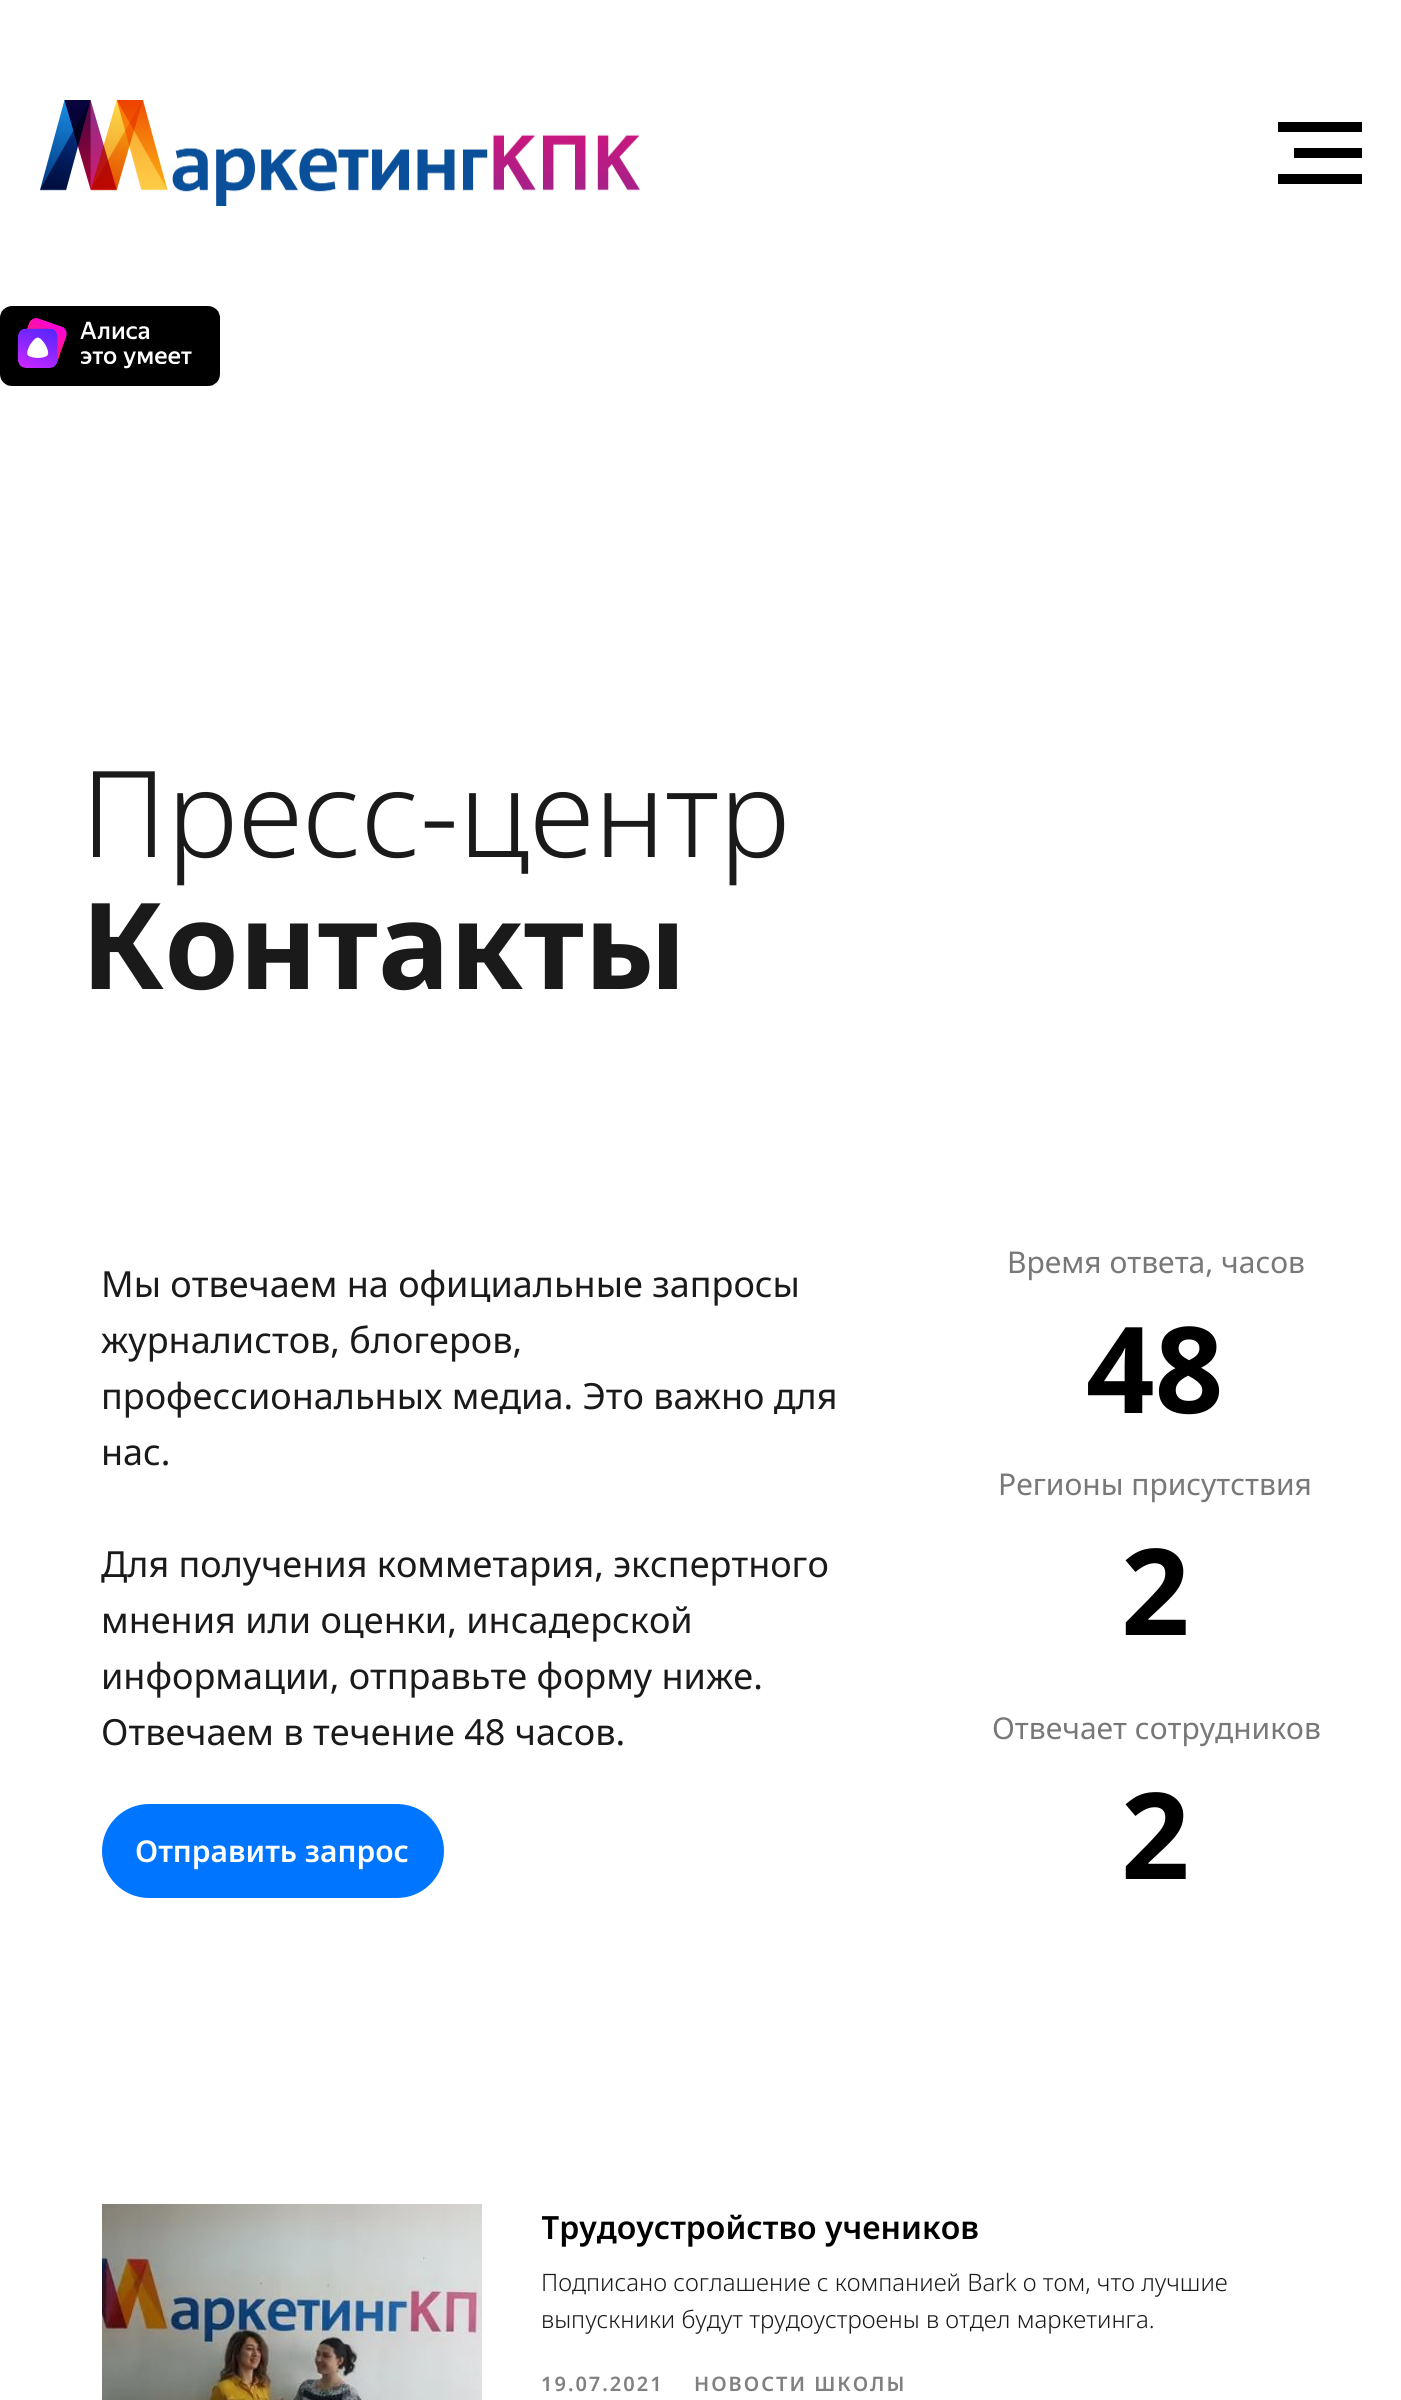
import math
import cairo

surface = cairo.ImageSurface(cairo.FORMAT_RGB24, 1401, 2400)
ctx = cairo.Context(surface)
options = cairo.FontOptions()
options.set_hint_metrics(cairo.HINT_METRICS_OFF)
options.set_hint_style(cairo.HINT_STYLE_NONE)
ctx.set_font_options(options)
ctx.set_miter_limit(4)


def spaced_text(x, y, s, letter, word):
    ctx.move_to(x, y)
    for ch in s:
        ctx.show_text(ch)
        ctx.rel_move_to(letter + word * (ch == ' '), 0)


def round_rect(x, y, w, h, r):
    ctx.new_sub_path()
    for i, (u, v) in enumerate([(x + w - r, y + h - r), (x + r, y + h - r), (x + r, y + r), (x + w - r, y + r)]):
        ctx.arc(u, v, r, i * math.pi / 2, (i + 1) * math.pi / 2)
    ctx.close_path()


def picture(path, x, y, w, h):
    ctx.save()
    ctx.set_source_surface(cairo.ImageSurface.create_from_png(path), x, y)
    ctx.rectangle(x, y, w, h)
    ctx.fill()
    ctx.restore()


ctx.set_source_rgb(1, 1, 1)
ctx.paint()
picture("img1.png", 40, 100, 600, 106)
ctx.set_source_rgb(0, 0, 0)
ctx.rectangle(1278, 122, 84, 10)
ctx.fill()
ctx.rectangle(1294, 148, 68, 10)
ctx.fill()
ctx.rectangle(1278, 174, 84, 10)
ctx.fill()
picture("img2.png", 0, 306, 220, 80)
ctx.select_font_face("Noto Sans Light")
ctx.set_font_size(120)
ctx.set_source_rgb(0.102, 0.102, 0.102)
ctx.move_to(81, 857)
ctx.show_text("Пресс-центр")
ctx.select_font_face("Noto Sans", cairo.FONT_SLANT_NORMAL, cairo.FONT_WEIGHT_BOLD)
ctx.move_to(81, 989)
ctx.show_text("Контакты")
ctx.select_font_face("Noto Sans")
ctx.set_font_size(30)
ctx.set_source_rgb(0.471, 0.471, 0.471)
ctx.move_to(1007, 1273)
ctx.show_text("Время ответа, часов")
ctx.set_font_size(36)
ctx.set_source_rgb(0.102, 0.102, 0.102)
ctx.move_to(101, 1297)
ctx.show_text("Мы отвечаем на официальные запросы")
ctx.move_to(101, 1353)
ctx.show_text("журналистов, блогеров,")
ctx.move_to(101, 1409)
ctx.show_text("профессиональных медиа. Это важно для")
ctx.move_to(101, 1465)
ctx.show_text("нас.")
ctx.move_to(101, 1577)
ctx.show_text("Для получения комметария, экспертного")
ctx.move_to(101, 1633)
ctx.show_text("мнения или оценки, инсадерской")
ctx.move_to(101, 1689)
ctx.show_text("информации, отправьте форму ниже.")
ctx.move_to(101, 1745)
ctx.show_text("Отвечаем в течение 48 часов.")
ctx.select_font_face("Noto Sans", cairo.FONT_SLANT_NORMAL, cairo.FONT_WEIGHT_BOLD)
ctx.set_font_size(120)
ctx.set_source_rgb(0, 0, 0)
ctx.move_to(1086, 1413)
ctx.show_text("48")
ctx.select_font_face("Noto Sans")
ctx.set_font_size(30)
ctx.set_source_rgb(0.471, 0.471, 0.471)
ctx.move_to(998, 1495)
ctx.show_text("Регионы присутствия")
ctx.select_font_face("Noto Sans", cairo.FONT_SLANT_NORMAL, cairo.FONT_WEIGHT_BOLD)
ctx.set_font_size(120)
ctx.set_source_rgb(0, 0, 0)
ctx.move_to(1121, 1635)
ctx.show_text("2")
ctx.select_font_face("Noto Sans")
ctx.set_font_size(30)
ctx.set_source_rgb(0.471, 0.471, 0.471)
ctx.move_to(992, 1739)
ctx.show_text("Отвечает сотрудников")
ctx.set_source_rgb(0, 0.459, 1)
round_rect(102, 1804, 342, 94, 47)
ctx.fill()
ctx.select_font_face("Noto Sans SemiBold")
ctx.set_source_rgb(1, 1, 1)
ctx.move_to(135, 1862)
ctx.show_text("Отправить запрос")
ctx.select_font_face("Noto Sans", cairo.FONT_SLANT_NORMAL, cairo.FONT_WEIGHT_BOLD)
ctx.set_font_size(120)
ctx.set_source_rgb(0, 0, 0)
ctx.move_to(1121, 1879)
ctx.show_text("2")
picture("img3.png", 102, 2204, 380, 196)
ctx.save()
ctx.rectangle(542, 2204, 760, 44)
ctx.clip()
ctx.select_font_face("Noto Sans SemiBold")
ctx.set_font_size(32)
ctx.move_to(541, 2239)
ctx.show_text("Трудоустройство учеников")
ctx.restore()
ctx.select_font_face("Noto Sans Light")
ctx.set_font_size(24)
ctx.set_source_rgb(0.102, 0.102, 0.102)
ctx.move_to(541, 2291)
ctx.show_text("Подписано соглашение с компанией Bark о том, что лучшие")
ctx.move_to(541, 2328)
ctx.show_text("выпускники будут трудоустроены в отдел маркетинга.")
ctx.select_font_face("Noto Sans SemiBold")
ctx.set_font_size(20)
ctx.set_source_rgb(0.502, 0.502, 0.502)
spaced_text(541, 2391, "19.07.2021", 2, 0)
spaced_text(694, 2391, "НОВОСТИ ШКОЛЫ", 2, 0)
surface.write_to_png("page.png")
